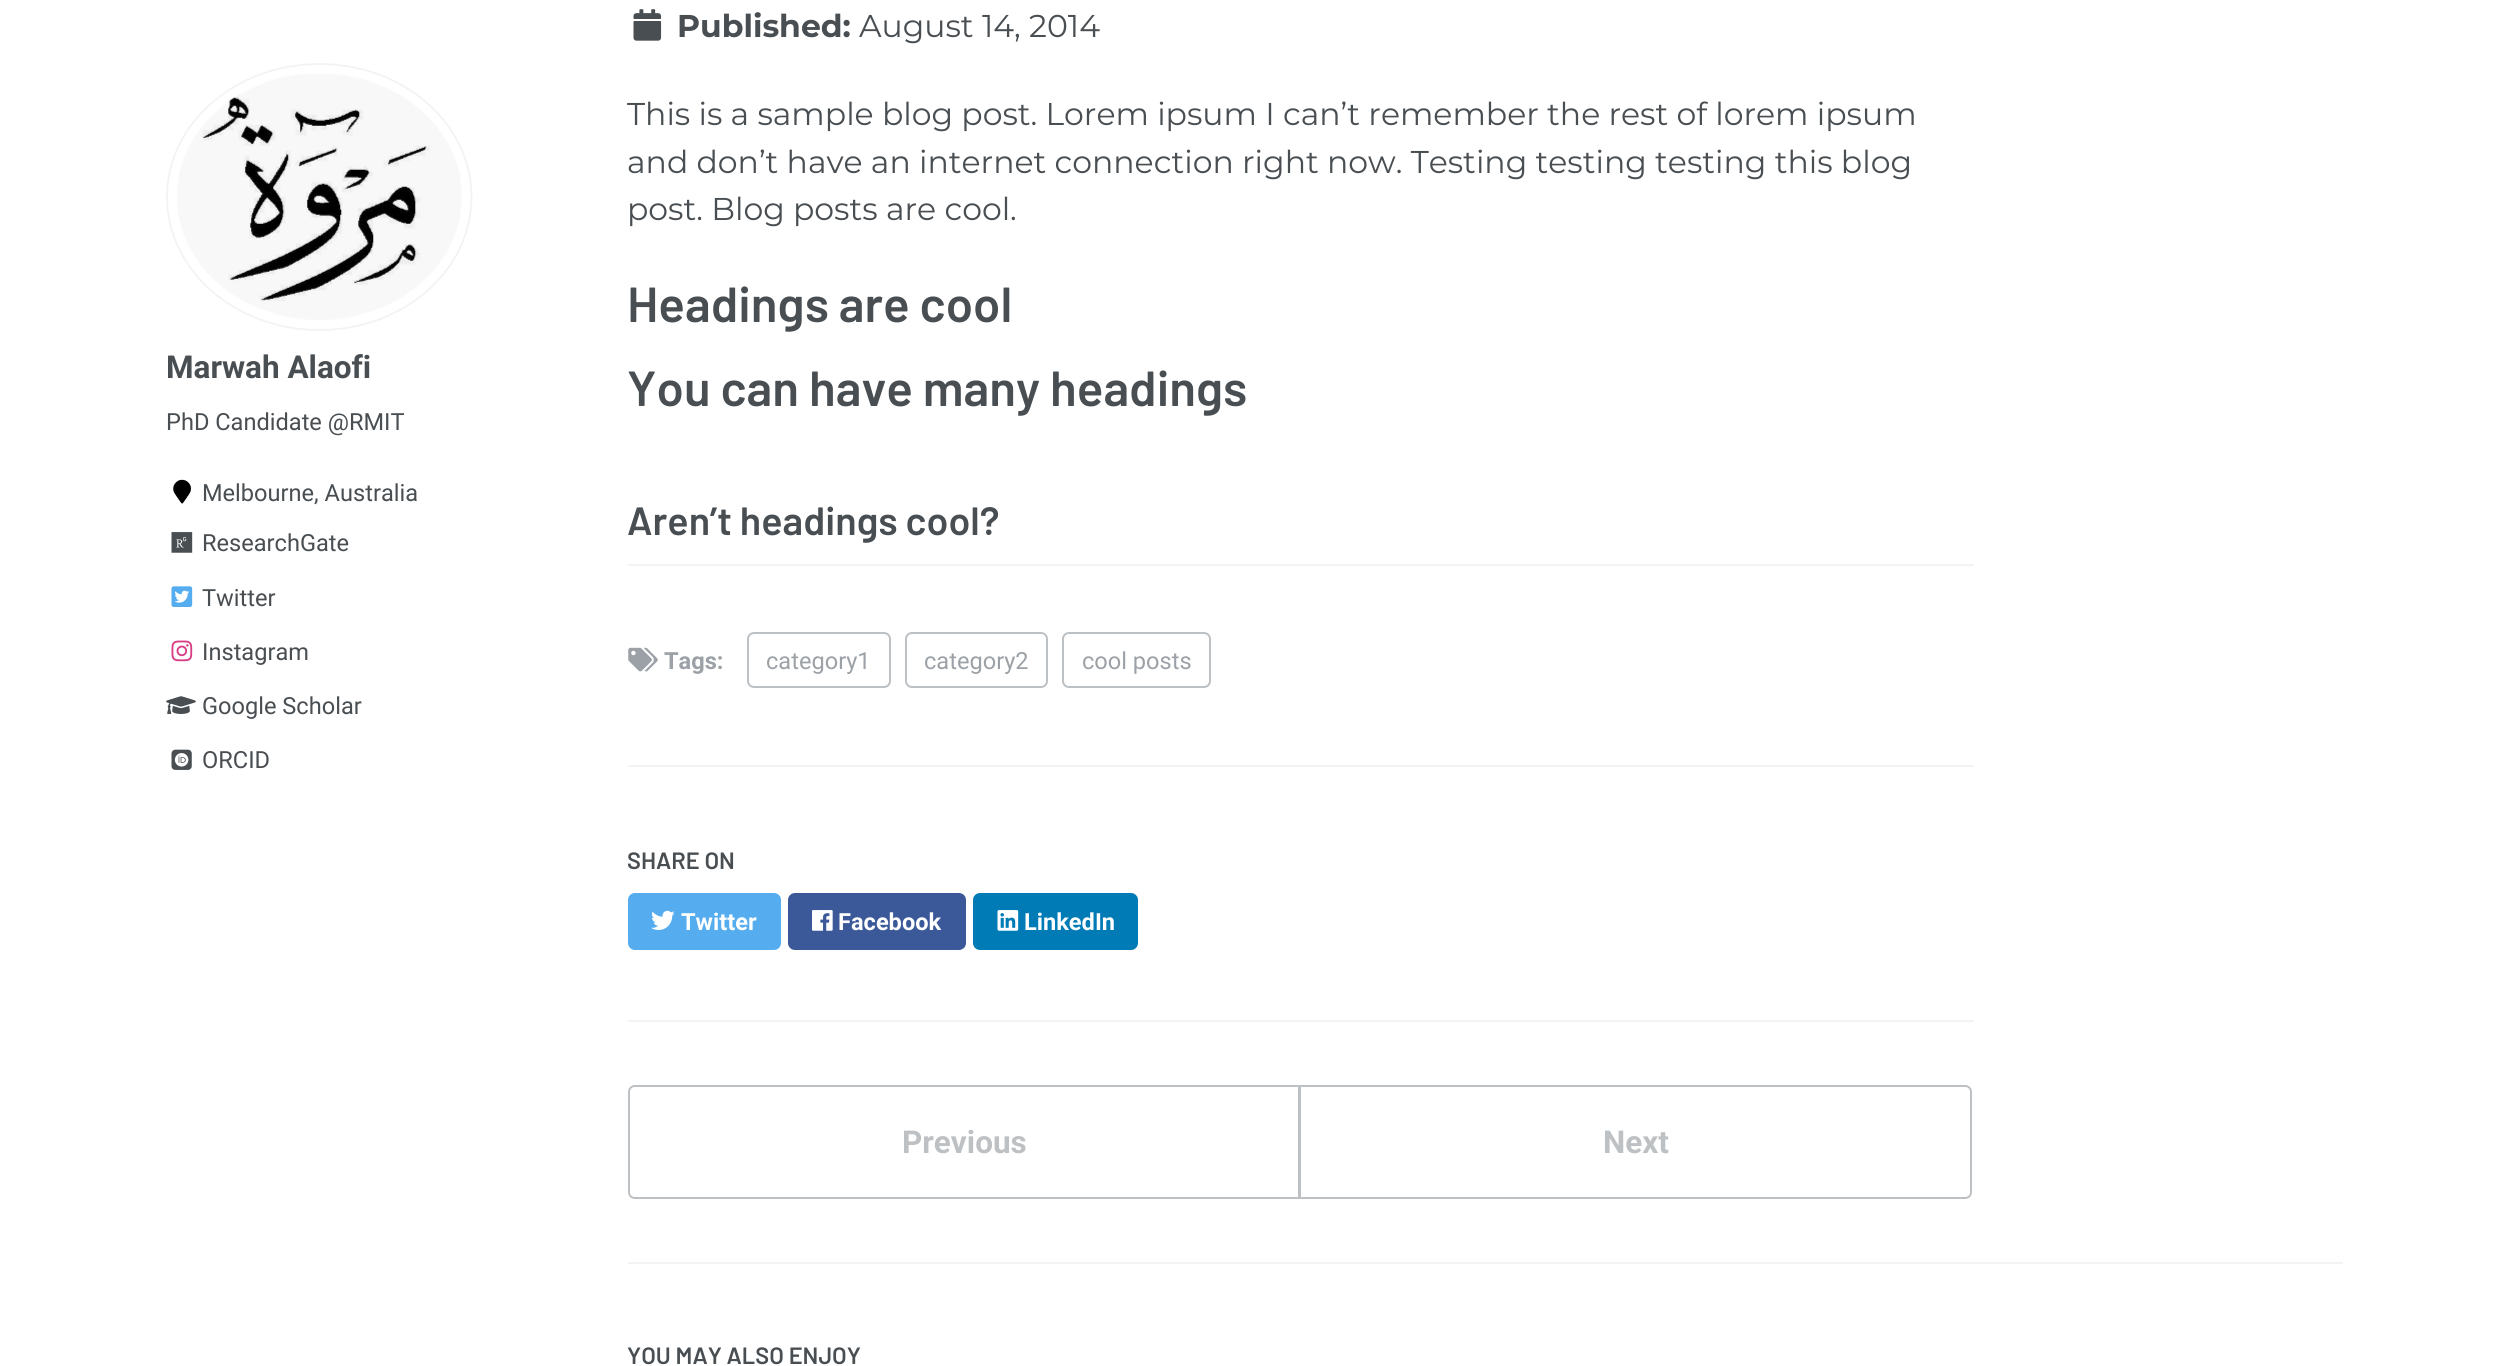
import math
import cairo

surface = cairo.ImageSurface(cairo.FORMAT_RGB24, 2508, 1366)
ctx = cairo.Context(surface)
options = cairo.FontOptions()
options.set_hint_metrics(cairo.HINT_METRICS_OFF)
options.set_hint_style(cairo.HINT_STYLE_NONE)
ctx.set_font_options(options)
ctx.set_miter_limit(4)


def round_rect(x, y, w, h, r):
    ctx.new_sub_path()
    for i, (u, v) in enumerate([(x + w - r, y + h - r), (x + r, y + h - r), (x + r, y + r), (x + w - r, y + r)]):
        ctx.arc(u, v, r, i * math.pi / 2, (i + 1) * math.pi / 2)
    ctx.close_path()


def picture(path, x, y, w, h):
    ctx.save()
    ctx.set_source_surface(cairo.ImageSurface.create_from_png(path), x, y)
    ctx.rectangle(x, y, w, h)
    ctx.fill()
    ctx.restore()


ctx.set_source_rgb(1, 1, 1)
ctx.paint()
ctx.new_path()
ctx.move_to(319.5, 64)
ctx.curve_to(403.5, 64, 471.5, 123.5, 471.5, 197)
ctx.curve_to(471.5, 270.5, 403.5, 330, 319.5, 330)
ctx.curve_to(235.5, 330, 167, 270.5, 167, 197)
ctx.curve_to(167, 123.5, 235.5, 64, 319.5, 64)
ctx.close_path()
ctx.set_source_rgb(0.949, 0.953, 0.953)
ctx.set_line_width(1.8)
ctx.stroke()
picture("img1.png", 177, 74, 285, 246)
ctx.select_font_face("Roboto", cairo.FONT_SLANT_NORMAL, cairo.FONT_WEIGHT_BOLD)
ctx.set_font_size(31.5)
ctx.set_source_rgb(0.286, 0.306, 0.322)
ctx.move_to(166, 378)
ctx.show_text("Marwah Alaofi")
ctx.select_font_face("Roboto")
ctx.set_font_size(23.6)
ctx.move_to(166, 430)
ctx.show_text("PhD Candidate @RMIT")
picture("img2.png", 173, 479, 18, 25)
ctx.move_to(202, 501)
ctx.show_text("Melbourne, Australia")
picture("img3.png", 171, 532, 22, 21)
ctx.move_to(202, 551)
ctx.show_text("ResearchGate")
picture("img4.png", 171, 586, 22, 21)
ctx.move_to(202, 606)
ctx.show_text("Twitter")
picture("img5.png", 171, 640, 22, 22)
ctx.move_to(202, 660)
ctx.show_text("Instagram")
picture("img6.png", 166, 696, 30, 18)
ctx.move_to(202, 714)
ctx.show_text("Google Scholar")
picture("img7.png", 171, 749, 21, 21)
ctx.move_to(202, 768)
ctx.show_text("ORCID")
picture("img8.png", 633, 9, 29, 32)
ctx.select_font_face("Montserrat", cairo.FONT_SLANT_NORMAL, cairo.FONT_WEIGHT_BOLD)
ctx.set_font_size(31.5)
ctx.move_to(677, 37)
ctx.show_text("Published:")
ctx.select_font_face("Montserrat")
ctx.move_to(859, 37)
ctx.show_text("August 14, 2014")
ctx.move_to(627, 125)
ctx.show_text("This is a sample blog post. Lorem ipsum I can’t remember the rest of lorem ipsum")
ctx.move_to(627, 173)
ctx.show_text("and don’t have an internet connection right now. Testing testing testing this blog")
ctx.move_to(627, 220)
ctx.show_text("post. Blog posts are cool.")
ctx.select_font_face("Barlow SemiBold")
ctx.set_font_size(49.25)
ctx.move_to(627, 322)
ctx.show_text("Headings are cool")
ctx.move_to(627, 406)
ctx.show_text("You can have many headings")
ctx.set_source_rgb(0.949, 0.953, 0.953)
ctx.rectangle(628, 564, 1346, 2)
ctx.fill()
ctx.set_font_size(39.4)
ctx.set_source_rgb(0.286, 0.306, 0.322)
ctx.move_to(627, 535)
ctx.show_text("Aren’t headings cool?")
picture("img9.png", 628, 647, 30, 25)
ctx.select_font_face("Roboto", cairo.FONT_SLANT_NORMAL, cairo.FONT_WEIGHT_BOLD)
ctx.set_font_size(23.6)
ctx.set_source_rgb(0.608, 0.631, 0.651)
ctx.move_to(664, 669)
ctx.show_text("Tags:")
round_rect(748, 633, 142, 54, 6)
ctx.set_source_rgb(0.741, 0.757, 0.769)
ctx.set_line_width(2)
ctx.stroke()
ctx.select_font_face("Roboto")
ctx.set_source_rgb(0.608, 0.631, 0.651)
ctx.move_to(766, 669)
ctx.show_text("category1")
round_rect(906, 633, 141, 54, 6)
ctx.set_source_rgb(0.741, 0.757, 0.769)
ctx.stroke()
ctx.set_source_rgb(0.608, 0.631, 0.651)
ctx.move_to(924, 669)
ctx.show_text("category2")
round_rect(1063, 633, 147, 54, 6)
ctx.set_source_rgb(0.741, 0.757, 0.769)
ctx.stroke()
ctx.set_source_rgb(0.608, 0.631, 0.651)
ctx.move_to(1082, 669)
ctx.show_text("cool posts")
ctx.set_source_rgb(0.949, 0.953, 0.953)
ctx.rectangle(628, 765, 1346, 2)
ctx.fill()
ctx.select_font_face("Barlow SemiBold")
ctx.set_source_rgb(0.286, 0.306, 0.322)
ctx.move_to(627, 869)
ctx.show_text("SHARE ON")
ctx.set_source_rgb(0.333, 0.675, 0.933)
round_rect(628, 893, 153, 57, 7)
ctx.fill()
picture("img10.png", 651, 910, 24, 20)
ctx.select_font_face("Roboto", cairo.FONT_SLANT_NORMAL, cairo.FONT_WEIGHT_BOLD)
ctx.set_source_rgb(1, 1, 1)
ctx.move_to(681, 930)
ctx.show_text("Twitter")
ctx.set_source_rgb(0.231, 0.349, 0.596)
round_rect(788, 893, 178, 57, 7)
ctx.fill()
picture("img11.png", 812, 910, 21, 21)
ctx.set_source_rgb(1, 1, 1)
ctx.move_to(838, 930)
ctx.show_text("Facebook")
ctx.set_source_rgb(0, 0.482, 0.714)
round_rect(973, 893, 165, 57, 7)
ctx.fill()
picture("img12.png", 997, 910, 22, 21)
ctx.set_source_rgb(1, 1, 1)
ctx.move_to(1024, 930)
ctx.show_text("LinkedIn")
ctx.set_source_rgb(0.949, 0.953, 0.953)
ctx.rectangle(628, 1020, 1346, 2)
ctx.fill()
ctx.new_path()
ctx.move_to(635, 1086)
ctx.line_to(1299, 1086)
ctx.line_to(1299, 1198)
ctx.line_to(635, 1198)
ctx.curve_to(631.5, 1198, 629, 1195.5, 629, 1192)
ctx.line_to(629, 1092)
ctx.curve_to(629, 1088.5, 631.5, 1086, 635, 1086)
ctx.close_path()
ctx.set_source_rgb(0.741, 0.757, 0.769)
ctx.stroke()
ctx.set_font_size(31.5)
ctx.move_to(902, 1153)
ctx.show_text("Previous")
ctx.new_path()
ctx.move_to(1300, 1086)
ctx.line_to(1965, 1086)
ctx.curve_to(1968.5, 1086, 1971, 1088.5, 1971, 1092)
ctx.line_to(1971, 1192)
ctx.curve_to(1971, 1195.5, 1968.5, 1198, 1965, 1198)
ctx.line_to(1300, 1198)
ctx.close_path()
ctx.stroke()
ctx.move_to(1603, 1153)
ctx.show_text("Next")
ctx.set_source_rgb(0.949, 0.953, 0.953)
ctx.rectangle(628, 1262, 1715, 2)
ctx.fill()
ctx.select_font_face("Barlow SemiBold")
ctx.set_font_size(23.6)
ctx.set_source_rgb(0.286, 0.306, 0.322)
ctx.move_to(627, 1364)
ctx.show_text("YOU MAY ALSO ENJOY")
surface.write_to_png("page.png")
